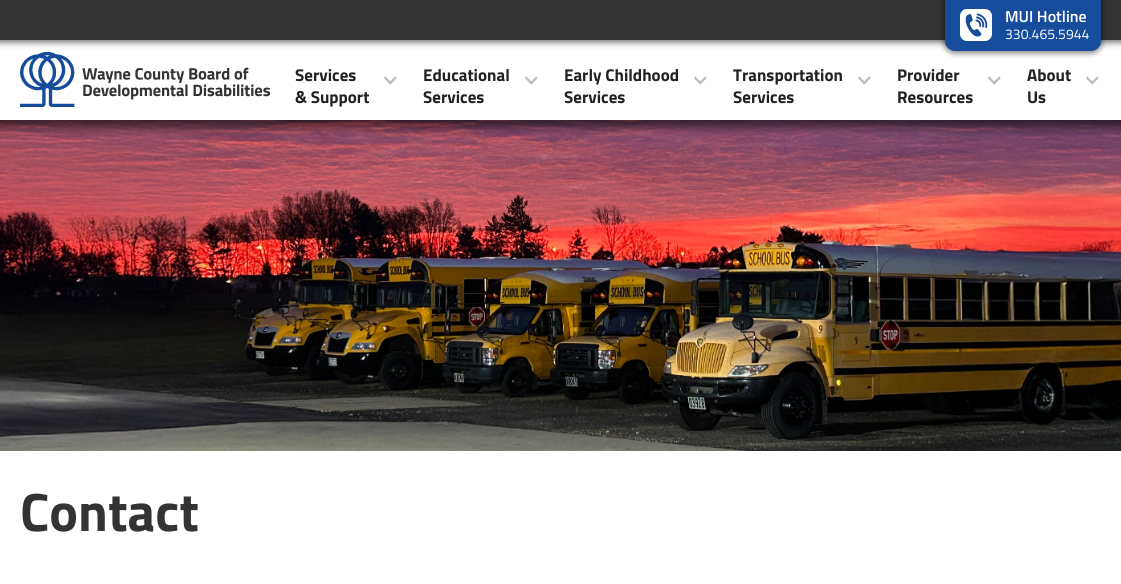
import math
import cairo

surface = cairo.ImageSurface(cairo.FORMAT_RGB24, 1121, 584)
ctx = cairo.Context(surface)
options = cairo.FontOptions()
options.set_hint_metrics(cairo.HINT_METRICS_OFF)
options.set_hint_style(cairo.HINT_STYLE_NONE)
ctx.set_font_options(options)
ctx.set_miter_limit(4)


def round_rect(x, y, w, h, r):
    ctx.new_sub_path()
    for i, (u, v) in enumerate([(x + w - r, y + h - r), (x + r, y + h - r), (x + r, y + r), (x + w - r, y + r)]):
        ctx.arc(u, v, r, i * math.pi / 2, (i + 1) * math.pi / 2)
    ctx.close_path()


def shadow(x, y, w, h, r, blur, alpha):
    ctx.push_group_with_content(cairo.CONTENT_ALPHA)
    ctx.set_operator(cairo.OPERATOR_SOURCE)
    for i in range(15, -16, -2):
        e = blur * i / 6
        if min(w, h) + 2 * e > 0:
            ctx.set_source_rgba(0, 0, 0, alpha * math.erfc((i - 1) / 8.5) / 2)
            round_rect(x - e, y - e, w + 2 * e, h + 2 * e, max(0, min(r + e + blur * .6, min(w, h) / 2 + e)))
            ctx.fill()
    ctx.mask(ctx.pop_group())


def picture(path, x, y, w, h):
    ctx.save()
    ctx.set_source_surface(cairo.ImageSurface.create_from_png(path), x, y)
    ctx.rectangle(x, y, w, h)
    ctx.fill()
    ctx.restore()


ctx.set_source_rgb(1, 1, 1)
ctx.paint()
picture("img4.png", 0, 120, 1121, 331)
ctx.set_source_rgb(0, 0, 0)
shadow(-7, -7, 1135, 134, 0, 5, 0.6)
ctx.set_source_rgb(1, 1, 1)
ctx.rectangle(0, 40, 1121, 80)
ctx.fill()
picture("img2.png", 20, 52, 250, 55)
ctx.set_source_rgb(0.4, 0.4, 0.4)
shadow(-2, -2, 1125, 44, 0, 3.5, 1)
ctx.set_source_rgb(0.2, 0.2, 0.2)
ctx.rectangle(0, 0, 1121, 40)
ctx.fill()
ctx.set_source_rgb(0, 0, 0)
shadow(943, -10, 160, 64, 12, 2.5, 0.4)
ctx.set_source_rgb(0.086, 0.298, 0.612)
ctx.new_path()
ctx.move_to(945, -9)
ctx.line_to(1101, -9)
ctx.line_to(1101, 41)
ctx.curve_to(1101, 46.5, 1096.5, 51, 1091, 51)
ctx.line_to(955, 51)
ctx.curve_to(949.5, 51, 945, 46.5, 945, 41)
ctx.close_path()
ctx.fill()
picture("img1.png", 960, 9, 32, 32)
ctx.select_font_face("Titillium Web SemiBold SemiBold")
ctx.set_font_size(16)
ctx.set_source_rgb(1, 1, 1)
ctx.move_to(1005, 22)
ctx.show_text("MUI Hotline")
ctx.select_font_face("Titillium Web")
ctx.set_font_size(14)
ctx.move_to(1005, 39)
ctx.show_text("330.465.5944")
ctx.select_font_face("Titillium Web", cairo.FONT_SLANT_NORMAL, cairo.FONT_WEIGHT_BOLD)
ctx.set_font_size(17)
ctx.set_source_rgb(0.133, 0.133, 0.133)
ctx.move_to(295, 81)
ctx.show_text("Services")
ctx.move_to(295, 103)
ctx.show_text("& Support")
picture("img3.png", 384, 76, 13, 9)
ctx.move_to(423, 81)
ctx.show_text("Educational")
ctx.move_to(423, 103)
ctx.show_text("Services")
picture("img3.png", 525, 76, 13, 9)
ctx.move_to(564, 81)
ctx.show_text("Early Childhood")
ctx.move_to(564, 103)
ctx.show_text("Services")
picture("img3.png", 694, 76, 13, 9)
ctx.move_to(733, 81)
ctx.show_text("Transportation")
ctx.move_to(733, 103)
ctx.show_text("Services")
picture("img3.png", 858, 76, 13, 9)
ctx.move_to(897, 81)
ctx.show_text("Provider")
ctx.move_to(897, 103)
ctx.show_text("Resources")
picture("img3.png", 988, 76, 13, 9)
ctx.move_to(1027, 81)
ctx.show_text("About")
ctx.move_to(1027, 103)
ctx.show_text("Us")
picture("img3.png", 1086, 76, 13, 9)
ctx.set_font_size(54)
ctx.set_source_rgb(0.2, 0.2, 0.2)
ctx.move_to(20, 531)
ctx.show_text("Contact")
surface.write_to_png("page.png")
